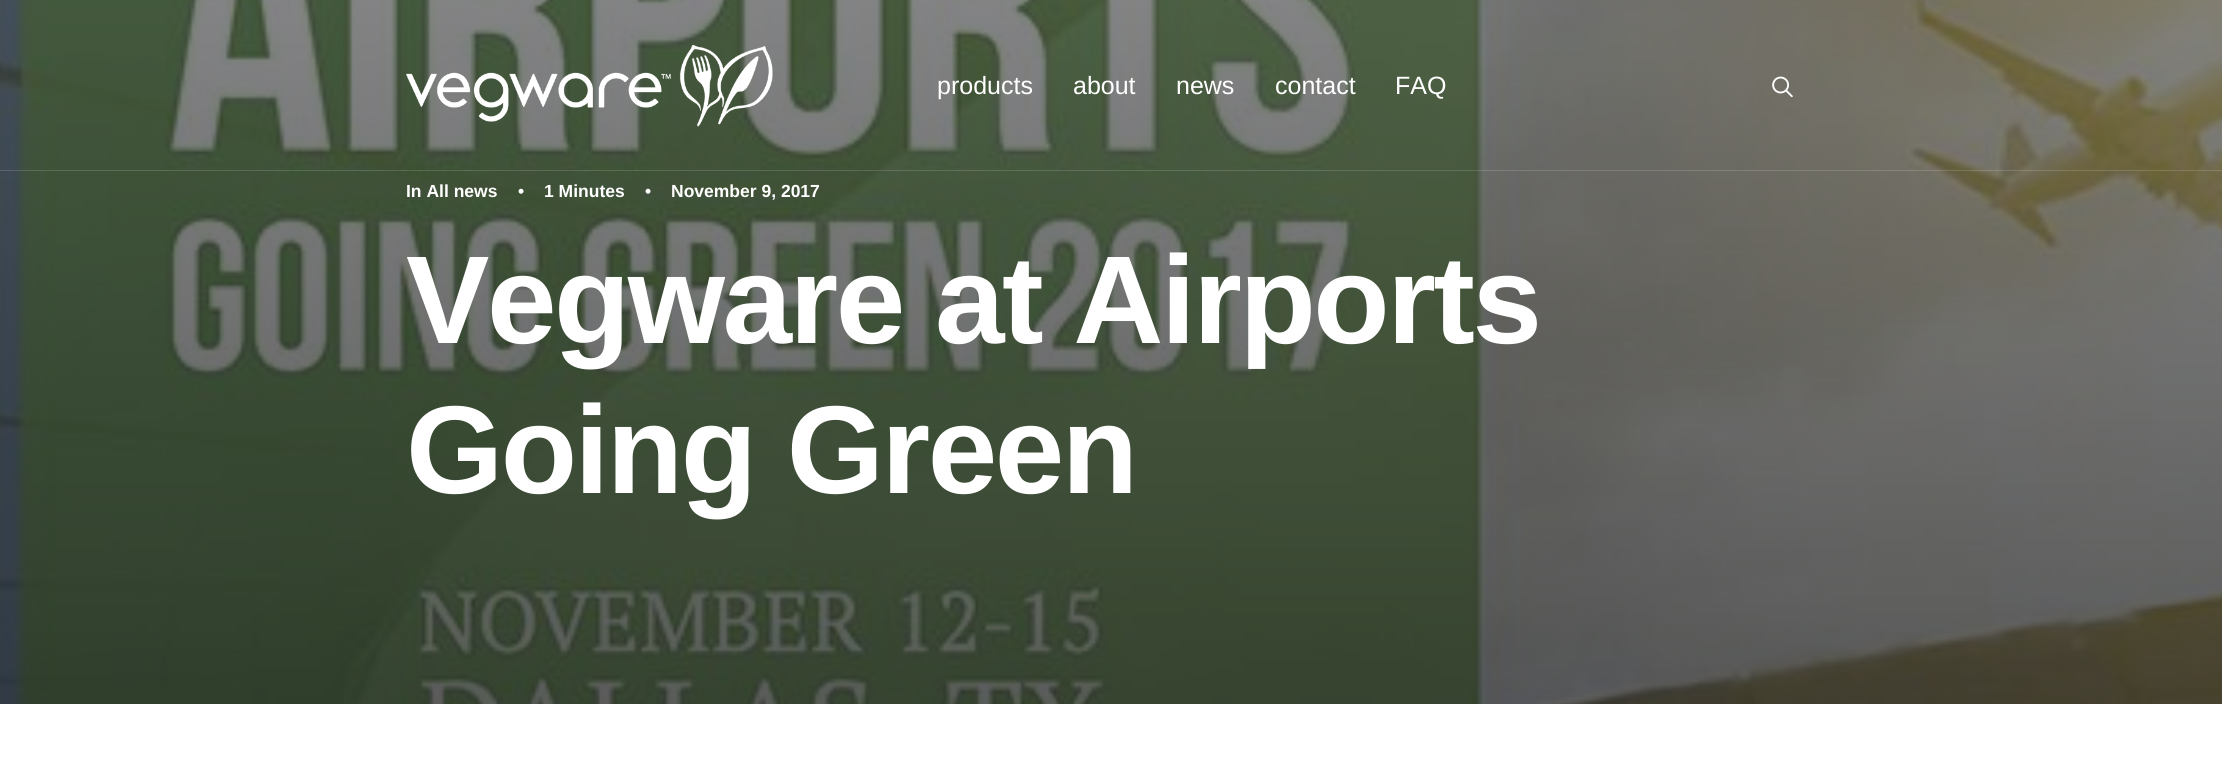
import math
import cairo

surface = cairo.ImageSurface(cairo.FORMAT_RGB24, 2222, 773)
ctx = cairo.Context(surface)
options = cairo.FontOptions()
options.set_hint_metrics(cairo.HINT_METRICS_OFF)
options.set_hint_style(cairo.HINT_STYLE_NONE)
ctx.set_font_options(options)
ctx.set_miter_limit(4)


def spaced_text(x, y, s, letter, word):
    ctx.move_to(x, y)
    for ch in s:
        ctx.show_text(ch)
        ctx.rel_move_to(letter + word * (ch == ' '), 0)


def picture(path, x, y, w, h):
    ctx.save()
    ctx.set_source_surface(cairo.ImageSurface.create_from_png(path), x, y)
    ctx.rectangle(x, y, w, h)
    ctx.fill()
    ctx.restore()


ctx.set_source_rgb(1, 1, 1)
ctx.paint()
picture("img3.png", 0, 0, 2222, 704)
picture("img1.png", 406, 45, 367, 82)
ctx.select_font_face("Liberation Sans")
ctx.set_font_size(25)
ctx.set_source_rgb(1, 1, 1)
ctx.move_to(937, 94)
ctx.show_text("products")
ctx.move_to(1073, 94)
ctx.show_text("about")
ctx.move_to(1176, 94)
ctx.show_text("news")
ctx.move_to(1275, 94)
ctx.show_text("contact")
ctx.move_to(1395, 94)
ctx.show_text("FAQ")
picture("img2.png", 1772, 76, 21, 22)
ctx.set_source_rgba(1, 1, 1, 0.15)
ctx.rectangle(0, 170, 2222, 1)
ctx.fill()
ctx.select_font_face("Liberation Sans", cairo.FONT_SLANT_NORMAL, cairo.FONT_WEIGHT_BOLD)
ctx.set_font_size(17.5)
ctx.set_source_rgb(1, 1, 1)
ctx.move_to(406, 197)
ctx.show_text("In All news")
ctx.move_to(518, 197)
ctx.show_text("•")
ctx.move_to(544, 197)
ctx.show_text("1 Minutes")
ctx.move_to(645, 197)
ctx.show_text("•")
ctx.move_to(671, 197)
ctx.show_text("November 9, 2017")
ctx.set_font_size(125)
spaced_text(406, 343, "Vegware at Airports", -2.5, 0)
spaced_text(406, 493, "Going Green", -2.5, 0)
surface.write_to_png("page.png")
